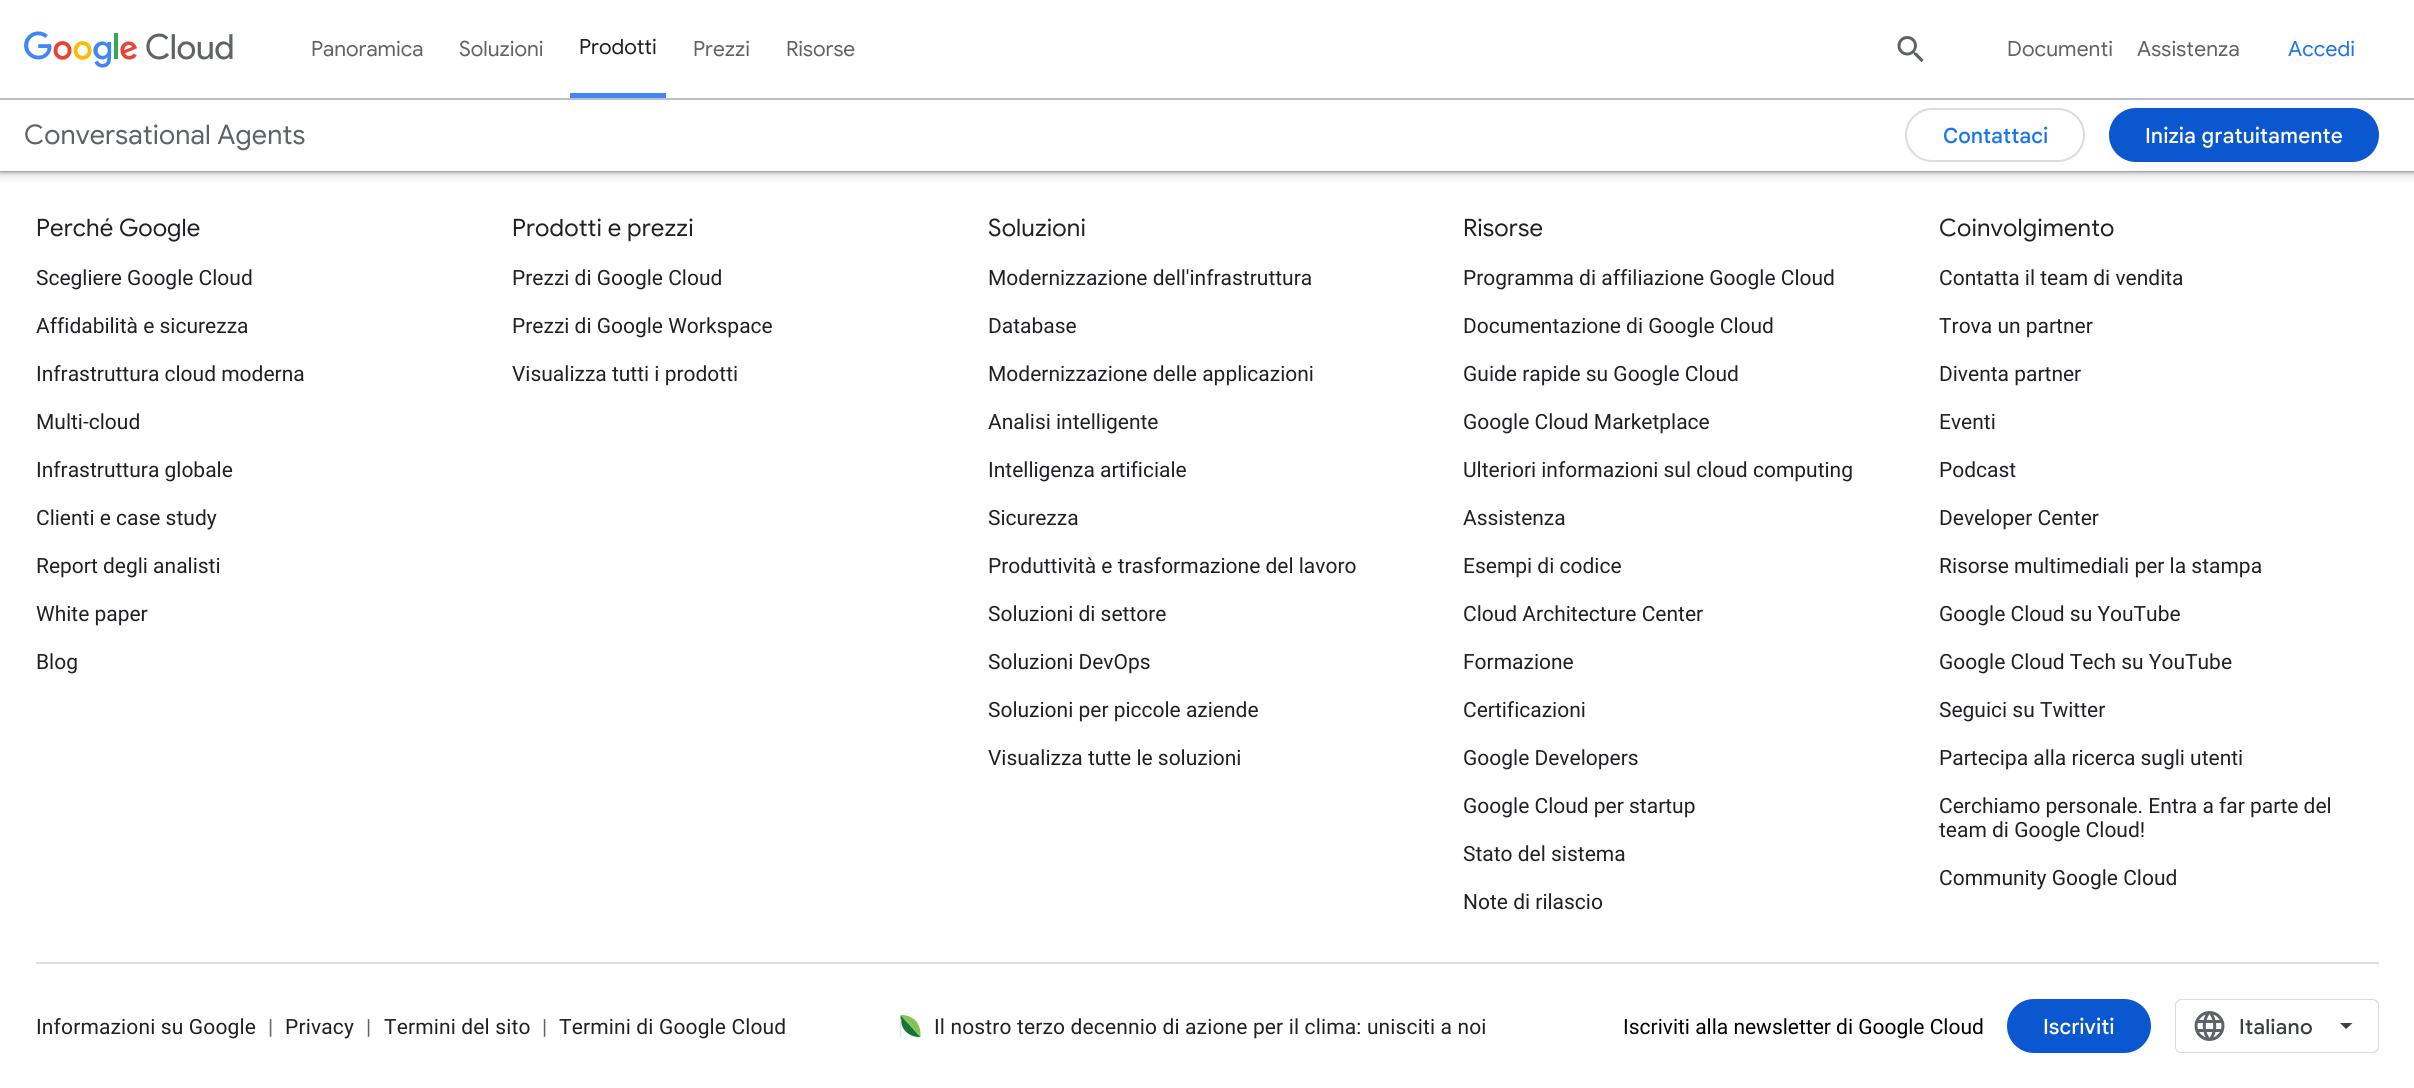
import math
import cairo

surface = cairo.ImageSurface(cairo.FORMAT_RGB24, 2414, 1088)
ctx = cairo.Context(surface)
options = cairo.FontOptions()
options.set_hint_metrics(cairo.HINT_METRICS_OFF)
options.set_hint_style(cairo.HINT_STYLE_NONE)
ctx.set_font_options(options)
ctx.set_miter_limit(4)


def spaced_text(x, y, s, letter, word):
    ctx.move_to(x, y)
    for ch in s:
        ctx.show_text(ch)
        ctx.rel_move_to(letter + word * (ch == ' '), 0)


def round_rect(x, y, w, h, r):
    ctx.new_sub_path()
    for i, (u, v) in enumerate([(x + w - r, y + h - r), (x + r, y + h - r), (x + r, y + r), (x + w - r, y + r)]):
        ctx.arc(u, v, r, i * math.pi / 2, (i + 1) * math.pi / 2)
    ctx.close_path()


def shadow(x, y, w, h, r, blur, alpha):
    ctx.push_group_with_content(cairo.CONTENT_ALPHA)
    ctx.set_operator(cairo.OPERATOR_SOURCE)
    for i in range(15, -16, -2):
        e = blur * i / 6
        if min(w, h) + 2 * e > 0:
            ctx.set_source_rgba(0, 0, 0, alpha * math.erfc((i - 1) / 8.5) / 2)
            round_rect(x - e, y - e, w + 2 * e, h + 2 * e, max(0, min(r + e + blur * .6, min(w, h) / 2 + e)))
            ctx.fill()
    ctx.mask(ctx.pop_group())


def picture(path, x, y, w, h):
    ctx.save()
    ctx.set_source_surface(cairo.ImageSurface.create_from_png(path), x, y)
    ctx.rectangle(x, y, w, h)
    ctx.fill()
    ctx.restore()


ctx.set_source_rgb(1, 1, 1)
ctx.paint()
round_rect(1906, 109, 178, 52, 26)
ctx.set_source_rgb(0.855, 0.863, 0.878)
ctx.stroke()
ctx.set_source_rgb(0.043, 0.341, 0.816)
round_rect(2109, 108, 270, 54, 27)
ctx.fill()
ctx.set_source_rgb(0.855, 0.863, 0.878)
ctx.rectangle(0, 171, 2414, 1)
ctx.fill()
ctx.save()
ctx.rectangle(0, 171, 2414, 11)
ctx.clip()
ctx.set_source_rgb(0.235, 0.251, 0.263)
shadow(-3, 0, 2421, 177, 0, 4.5, 0.15)
ctx.restore()
ctx.save()
ctx.rectangle(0, 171, 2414, 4)
ctx.clip()
ctx.set_source_rgb(0.235, 0.251, 0.263)
shadow(0, 2, 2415, 171, 0, 1.5, 0.3)
ctx.restore()
ctx.set_source_rgb(0.741, 0.757, 0.776)
ctx.rectangle(0, 98, 2414, 2)
ctx.fill()
picture("img1.png", 24, 31, 209, 37)
ctx.select_font_face("Google Sans")
ctx.set_font_size(21)
ctx.set_source_rgb(0.373, 0.388, 0.408)
ctx.move_to(311, 56)
ctx.show_text("Panoramica")
ctx.move_to(459, 56)
ctx.show_text("Soluzioni")
ctx.set_source_rgb(0.259, 0.522, 0.957)
ctx.rectangle(570, 93, 96, 5)
ctx.fill()
ctx.set_source_rgb(0.125, 0.129, 0.141)
ctx.move_to(579, 54)
ctx.show_text("Prodotti")
ctx.set_source_rgb(0.373, 0.388, 0.408)
ctx.move_to(693, 56)
ctx.show_text("Prezzi")
ctx.move_to(786, 56)
ctx.show_text("Risorse")
picture("img2.png", 1897, 36, 27, 27)
spaced_text(2007, 56, "Documenti", 0.15, 0)
spaced_text(2137, 56, "Assistenza", 0.15, 0)
ctx.set_source_rgb(0.102, 0.451, 0.91)
spaced_text(2288, 56, "Accedi", 0.15, 0)
ctx.set_font_size(27)
ctx.set_source_rgb(0.373, 0.388, 0.408)
spaced_text(24, 144, "Conversational Agents", 0.15, 0)
ctx.select_font_face("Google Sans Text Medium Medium")
ctx.set_font_size(21)
ctx.set_source_rgb(0.102, 0.451, 0.91)
ctx.move_to(1943, 143)
ctx.show_text("Contattaci")
ctx.set_source_rgb(1, 1, 1)
ctx.move_to(2145, 143)
ctx.show_text("Inizia gratuitamente")
ctx.select_font_face("Google Sans")
ctx.set_font_size(24)
ctx.set_source_rgb(0.125, 0.129, 0.141)
spaced_text(36, 236, "Perché Google", 0.15, 0)
ctx.select_font_face("Roboto")
ctx.set_font_size(21)
ctx.move_to(36, 285)
ctx.show_text("Scegliere Google Cloud")
ctx.move_to(36, 333)
ctx.show_text("Affidabilità e sicurezza")
ctx.move_to(36, 381)
ctx.show_text("Infrastruttura cloud moderna")
ctx.move_to(36, 429)
ctx.show_text("Multi-cloud")
ctx.move_to(36, 477)
ctx.show_text("Infrastruttura globale")
ctx.move_to(36, 525)
ctx.show_text("Clienti e case study")
ctx.move_to(36, 573)
ctx.show_text("Report degli analisti")
ctx.move_to(36, 621)
ctx.show_text("White paper")
ctx.move_to(36, 669)
ctx.show_text("Blog")
ctx.select_font_face("Google Sans")
ctx.set_font_size(24)
spaced_text(512, 236, "Prodotti e prezzi", 0.15, 0)
ctx.select_font_face("Roboto")
ctx.set_font_size(21)
ctx.move_to(512, 285)
ctx.show_text("Prezzi di Google Cloud")
ctx.move_to(512, 333)
ctx.show_text("Prezzi di Google Workspace")
ctx.move_to(512, 381)
ctx.show_text("Visualizza tutti i prodotti")
ctx.select_font_face("Google Sans")
ctx.set_font_size(24)
spaced_text(988, 236, "Soluzioni", 0.15, 0)
ctx.select_font_face("Roboto")
ctx.set_font_size(21)
ctx.move_to(988, 285)
ctx.show_text("Modernizzazione dell'infrastruttura")
ctx.move_to(988, 333)
ctx.show_text("Database")
ctx.move_to(988, 381)
ctx.show_text("Modernizzazione delle applicazioni")
ctx.move_to(988, 429)
ctx.show_text("Analisi intelligente")
ctx.move_to(988, 477)
ctx.show_text("Intelligenza artificiale")
ctx.move_to(988, 525)
ctx.show_text("Sicurezza")
ctx.move_to(988, 573)
ctx.show_text("Produttività e trasformazione del lavoro")
ctx.move_to(988, 621)
ctx.show_text("Soluzioni di settore")
ctx.move_to(988, 669)
ctx.show_text("Soluzioni DevOps")
ctx.move_to(988, 717)
ctx.show_text("Soluzioni per piccole aziende")
ctx.move_to(988, 765)
ctx.show_text("Visualizza tutte le soluzioni")
ctx.select_font_face("Google Sans")
ctx.set_font_size(24)
spaced_text(1463, 236, "Risorse", 0.15, 0)
ctx.select_font_face("Roboto")
ctx.set_font_size(21)
ctx.move_to(1463, 285)
ctx.show_text("Programma di affiliazione Google Cloud")
ctx.move_to(1463, 333)
ctx.show_text("Documentazione di Google Cloud")
ctx.move_to(1463, 381)
ctx.show_text("Guide rapide su Google Cloud")
ctx.move_to(1463, 429)
ctx.show_text("Google Cloud Marketplace")
ctx.move_to(1463, 477)
ctx.show_text("Ulteriori informazioni sul cloud computing")
ctx.move_to(1463, 525)
ctx.show_text("Assistenza")
ctx.move_to(1463, 573)
ctx.show_text("Esempi di codice")
ctx.move_to(1463, 621)
ctx.show_text("Cloud Architecture Center")
ctx.move_to(1463, 669)
ctx.show_text("Formazione")
ctx.move_to(1463, 717)
ctx.show_text("Certificazioni")
ctx.move_to(1463, 765)
ctx.show_text("Google Developers")
ctx.move_to(1463, 813)
ctx.show_text("Google Cloud per startup")
ctx.move_to(1463, 861)
ctx.show_text("Stato del sistema")
ctx.move_to(1463, 909)
ctx.show_text("Note di rilascio")
ctx.select_font_face("Google Sans")
ctx.set_font_size(24)
spaced_text(1939, 236, "Coinvolgimento", 0.15, 0)
ctx.select_font_face("Roboto")
ctx.set_font_size(21)
ctx.move_to(1939, 285)
ctx.show_text("Contatta il team di vendita")
ctx.move_to(1939, 333)
ctx.show_text("Trova un partner")
ctx.move_to(1939, 381)
ctx.show_text("Diventa partner")
ctx.move_to(1939, 429)
ctx.show_text("Eventi")
ctx.move_to(1939, 477)
ctx.show_text("Podcast")
ctx.move_to(1939, 525)
ctx.show_text("Developer Center")
ctx.move_to(1939, 573)
ctx.show_text("Risorse multimediali per la stampa")
ctx.move_to(1939, 621)
ctx.show_text("Google Cloud su YouTube")
ctx.move_to(1939, 669)
ctx.show_text("Google Cloud Tech su YouTube")
ctx.move_to(1939, 717)
ctx.show_text("Seguici su Twitter")
ctx.move_to(1939, 765)
ctx.show_text("Partecipa alla ricerca sugli utenti")
ctx.move_to(1939, 813)
ctx.show_text("Cerchiamo personale. Entra a far parte del")
ctx.move_to(1939, 837)
ctx.show_text("team di Google Cloud!")
ctx.move_to(1939, 885)
ctx.show_text("Community Google Cloud")
ctx.set_source_rgb(0.855, 0.863, 0.878)
ctx.rectangle(36, 962, 2343, 2)
ctx.fill()
ctx.set_source_rgb(0.125, 0.129, 0.141)
spaced_text(36, 1034, "Informazioni su Google", 0.15, 0)
ctx.set_source_rgb(0.373, 0.388, 0.408)
spaced_text(268, 1034, "|", 0.15, 0)
ctx.set_source_rgb(0.125, 0.129, 0.141)
spaced_text(285, 1034, "Privacy", 0.15, 0)
ctx.set_source_rgb(0.373, 0.388, 0.408)
spaced_text(366, 1034, "|", 0.15, 0)
ctx.set_source_rgb(0.125, 0.129, 0.141)
spaced_text(384, 1034, "Termini del sito", 0.15, 0)
ctx.set_source_rgb(0.373, 0.388, 0.408)
spaced_text(542, 1034, "|", 0.15, 0)
ctx.set_source_rgb(0.125, 0.129, 0.141)
spaced_text(559, 1034, "Termini di Google Cloud", 0.15, 0)
picture("img3.png", 900, 1015, 21, 22)
ctx.set_source_rgb(0.851, 0.91, 0.875)
spaced_text(898, 1034, "|", 0.15, 0)
ctx.set_source_rgb(0.125, 0.129, 0.141)
spaced_text(934, 1034, "Il nostro terzo decennio di azione per il clima: unisciti a noi", 0.15, 0)
ctx.set_source_rgb(0, 0, 0)
ctx.move_to(1623, 1034)
ctx.show_text("Iscriviti alla newsletter di Google Cloud")
ctx.set_source_rgb(0.043, 0.341, 0.816)
round_rect(2007, 999, 144, 54, 27)
ctx.fill()
ctx.select_font_face("Google Sans Text Medium Medium")
ctx.set_source_rgb(1, 1, 1)
ctx.move_to(2043, 1034)
ctx.show_text("Iscriviti")
ctx.set_source_rgb(0.855, 0.863, 0.878)
ctx.set_fill_rule(cairo.FILL_RULE_EVEN_ODD)
ctx.new_path()
ctx.move_to(2181, 999)
ctx.line_to(2193, 999)
ctx.line_to(2193, 1053)
ctx.line_to(2181, 1053)
ctx.curve_to(2178, 1053, 2175, 1050, 2175, 1047)
ctx.line_to(2175, 1005)
ctx.curve_to(2175, 1002, 2178, 999, 2181, 999)
ctx.close_path()
ctx.move_to(2181, 1000)
ctx.line_to(2193, 1000)
ctx.line_to(2193, 1052)
ctx.line_to(2181, 1052)
ctx.curve_to(2179, 1052, 2176, 1049, 2176, 1047)
ctx.line_to(2176, 1005)
ctx.curve_to(2176, 1003, 2179, 1000, 2181, 1000)
ctx.close_path()
ctx.fill()
ctx.new_path()
ctx.move_to(2193, 999)
ctx.line_to(2373, 999)
ctx.curve_to(2376, 999, 2379, 1002, 2379, 1005)
ctx.line_to(2379, 1047)
ctx.curve_to(2379, 1050, 2376, 1053, 2373, 1053)
ctx.line_to(2193, 1053)
ctx.close_path()
ctx.move_to(2193, 1000)
ctx.line_to(2373, 1000)
ctx.curve_to(2375, 1000, 2378, 1003, 2378, 1005)
ctx.line_to(2378, 1047)
ctx.curve_to(2378, 1049, 2375, 1052, 2373, 1052)
ctx.line_to(2193, 1052)
ctx.close_path()
ctx.fill()
picture("img4.png", 2194, 1011, 31, 30)
ctx.select_font_face("Google Sans Medium")
ctx.set_source_rgb(0.235, 0.251, 0.263)
spaced_text(2239, 1034, "Italiano", 0.25, 0)
ctx.new_path()
ctx.move_to(2340, 1023)
ctx.line_to(2346, 1029)
ctx.line_to(2352.5, 1023)
ctx.close_path()
ctx.fill()
surface.write_to_png("page.png")
